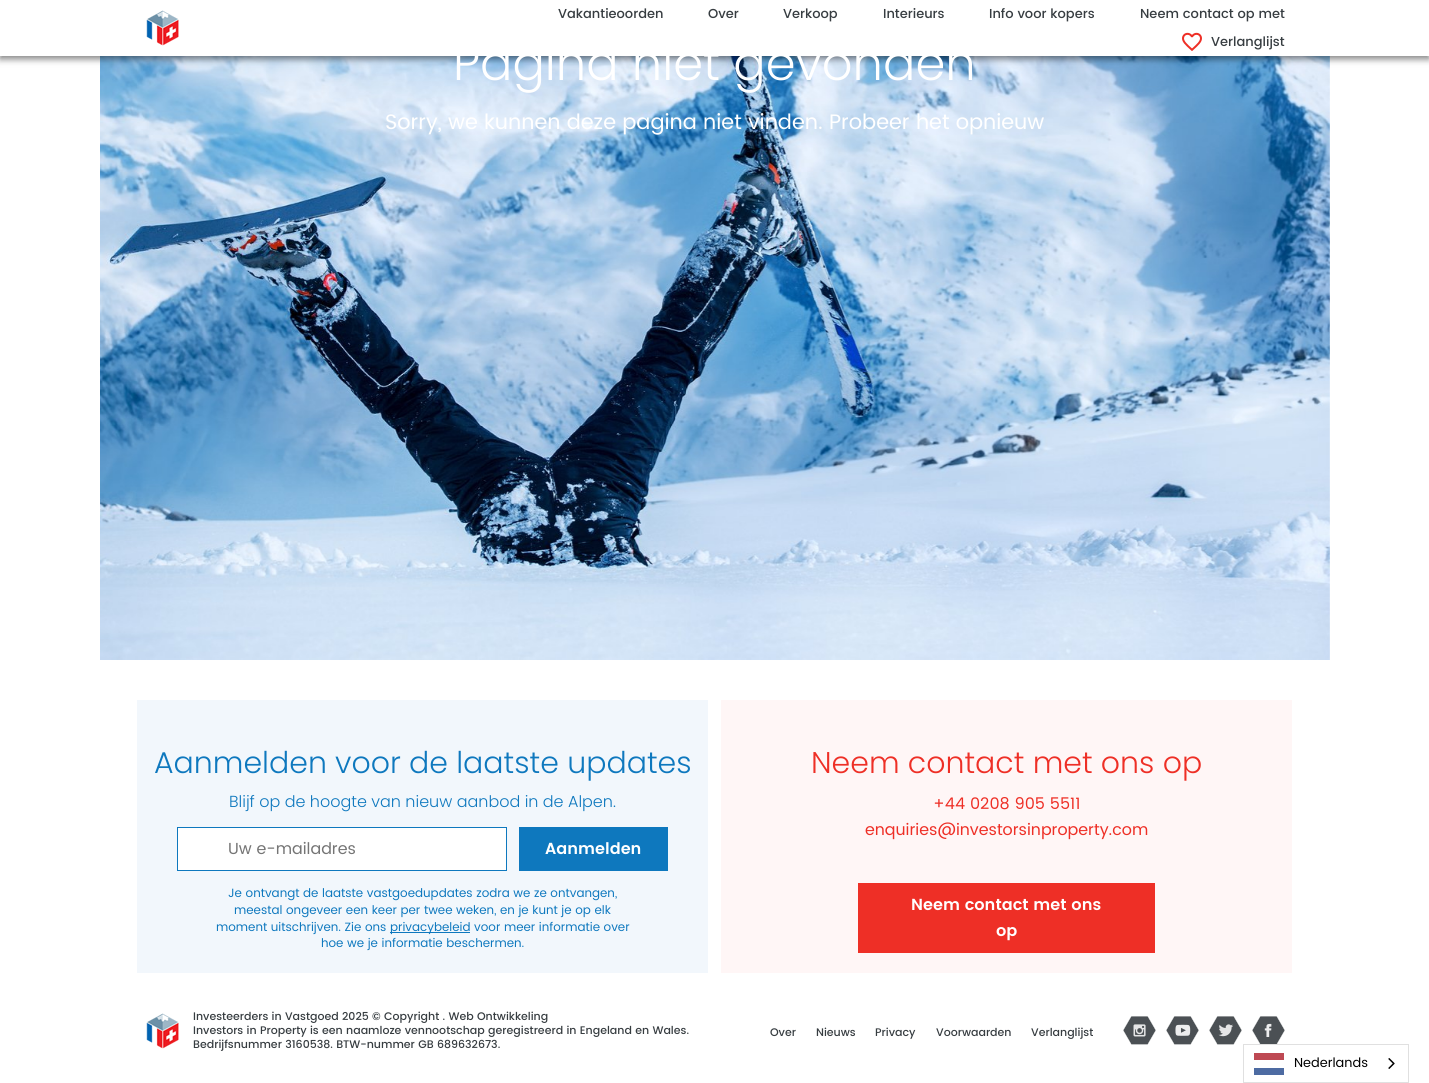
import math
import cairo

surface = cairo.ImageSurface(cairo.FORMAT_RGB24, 1429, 1083)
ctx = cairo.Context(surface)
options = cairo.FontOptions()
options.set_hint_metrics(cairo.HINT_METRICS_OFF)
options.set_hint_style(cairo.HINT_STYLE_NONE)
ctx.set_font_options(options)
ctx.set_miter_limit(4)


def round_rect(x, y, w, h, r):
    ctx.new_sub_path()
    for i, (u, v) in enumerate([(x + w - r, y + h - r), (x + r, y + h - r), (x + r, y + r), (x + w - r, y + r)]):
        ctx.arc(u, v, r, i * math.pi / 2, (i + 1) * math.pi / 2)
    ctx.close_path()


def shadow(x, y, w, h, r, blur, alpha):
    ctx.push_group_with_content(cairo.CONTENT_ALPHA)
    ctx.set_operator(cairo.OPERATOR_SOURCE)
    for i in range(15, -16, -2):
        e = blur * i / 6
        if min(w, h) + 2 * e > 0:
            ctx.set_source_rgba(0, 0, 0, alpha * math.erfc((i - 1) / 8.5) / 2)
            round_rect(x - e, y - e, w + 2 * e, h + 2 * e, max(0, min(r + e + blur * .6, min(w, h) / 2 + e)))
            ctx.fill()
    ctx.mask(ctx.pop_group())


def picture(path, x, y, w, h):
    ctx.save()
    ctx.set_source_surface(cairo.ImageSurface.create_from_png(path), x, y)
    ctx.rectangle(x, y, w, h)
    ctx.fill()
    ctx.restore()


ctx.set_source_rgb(1, 1, 1)
ctx.paint()
picture("img3.png", 100, 56, 1230, 604)
ctx.set_source_rgb(0, 0, 0)
shadow(0, 3, 1429, 56, 0, 3.5, 0.5)
ctx.set_source_rgb(1, 1, 1)
ctx.rectangle(0, 0, 1429, 56)
ctx.fill()
picture("img1.png", 146, 10, 33, 36)
ctx.select_font_face("Poppins Medium")
ctx.set_font_size(13)
ctx.set_source_rgb(0.216, 0.239, 0.255)
ctx.move_to(558, 18)
ctx.show_text("Vakantieoorden")
ctx.move_to(708, 18)
ctx.show_text("Over")
ctx.move_to(783, 18)
ctx.show_text("Verkoop")
ctx.move_to(883, 18)
ctx.show_text("Interieurs")
ctx.move_to(989, 18)
ctx.show_text("Info voor kopers")
ctx.move_to(1140, 18)
ctx.show_text("Neem contact op met")
picture("img2.png", 1182, 32, 20, 19)
ctx.move_to(1211, 46)
ctx.show_text("Verlanglijst")
ctx.select_font_face("Poppins Light")
ctx.set_font_size(48)
ctx.set_source_rgb(1, 1, 1)
ctx.move_to(453, 80)
ctx.show_text("Pagina niet gevonden")
ctx.select_font_face("Poppins")
ctx.set_font_size(21)
ctx.move_to(385, 129)
ctx.show_text("Sorry, we kunnen deze pagina niet vinden. Probeer het opnieuw")
ctx.set_source_rgb(0.949, 0.965, 0.988)
ctx.rectangle(137, 700, 571, 273)
ctx.fill()
ctx.select_font_face("Poppins Light")
ctx.set_font_size(30)
ctx.set_source_rgb(0.055, 0.471, 0.745)
ctx.move_to(154, 773)
ctx.show_text("Aanmelden voor de laatste updates")
ctx.set_font_size(16)
ctx.move_to(229, 807)
ctx.show_text("Blijf op de hoogte van nieuw aanbod in de Alpen.")
ctx.set_source_rgb(1, 1, 1)
ctx.rectangle(177.5, 827.5, 329, 43)
ctx.fill_preserve()
ctx.set_source_rgb(0.055, 0.471, 0.745)
ctx.set_line_width(1)
ctx.stroke()
ctx.select_font_face("Poppins")
ctx.set_source_rgb(0.459, 0.459, 0.459)
ctx.move_to(228, 854)
ctx.show_text("Uw e-mailadres")
ctx.set_source_rgb(0.055, 0.471, 0.745)
ctx.rectangle(519, 827, 149, 44)
ctx.fill()
ctx.select_font_face("Poppins SemiBold")
ctx.set_source_rgb(1, 1, 1)
ctx.move_to(545, 854)
ctx.show_text("Aanmelden")
ctx.select_font_face("Poppins")
ctx.set_font_size(12)
ctx.set_source_rgb(0.055, 0.471, 0.745)
ctx.move_to(228, 897)
ctx.show_text("Je ontvangt de laatste vastgoedupdates zodra we ze ontvangen,")
ctx.move_to(234, 914)
ctx.show_text("meestal ongeveer een keer per twee weken, en je kunt je op elk")
ctx.move_to(216, 931)
ctx.show_text("moment uitschrijven. Zie ons")
ctx.rectangle(390, 932, 80, 1)
ctx.fill()
ctx.move_to(390, 931)
ctx.show_text("privacybeleid voor meer informatie over")
ctx.move_to(321, 947)
ctx.show_text("hoe we je informatie beschermen.")
ctx.set_source_rgb(1, 0.961, 0.961)
ctx.rectangle(721, 700, 571, 273)
ctx.fill()
ctx.select_font_face("Poppins Light")
ctx.set_font_size(30)
ctx.set_source_rgb(0.933, 0.184, 0.149)
ctx.move_to(811, 773)
ctx.show_text("Neem contact met ons op")
ctx.select_font_face("Poppins")
ctx.set_font_size(16)
ctx.move_to(933, 809)
ctx.show_text("+44 0208 905 5511")
ctx.move_to(865, 835)
ctx.show_text("enquiries@investorsinproperty.com")
ctx.rectangle(858, 883, 297, 70)
ctx.fill()
ctx.select_font_face("Poppins SemiBold")
ctx.set_source_rgb(1, 1, 1)
ctx.move_to(911, 910)
ctx.show_text("Neem contact met ons")
ctx.move_to(996, 936)
ctx.show_text("op")
picture("img1.png", 146, 1013, 33, 36)
ctx.select_font_face("Poppins Medium")
ctx.set_font_size(11)
ctx.set_source_rgb(0.216, 0.239, 0.255)
ctx.move_to(193, 1020)
ctx.show_text("Investeerders in Vastgoed 2025 © Copyright . Web Ontwikkeling")
ctx.move_to(193, 1034)
ctx.show_text("Investors in Property is een naamloze vennootschap geregistreerd in Engeland en Wales.")
ctx.move_to(193, 1048)
ctx.show_text("Bedrijfsnummer 3160538. BTW-nummer GB 689632673.")
ctx.move_to(770, 1036)
ctx.show_text("Over")
ctx.move_to(816, 1036)
ctx.show_text("Nieuws")
ctx.move_to(875, 1036)
ctx.show_text("Privacy")
ctx.move_to(936, 1036)
ctx.show_text("Voorwaarden")
ctx.move_to(1031, 1036)
ctx.show_text("Verlanglijst")
picture("img4.png", 1123, 1016, 33, 29)
picture("img5.png", 1166, 1016, 33, 29)
picture("img6.png", 1209, 1016, 33, 29)
picture("img7.png", 1252, 1016, 33, 28)
ctx.rectangle(1243.5, 1044.5, 165, 38)
ctx.set_source_rgb(0.878, 0.878, 0.878)
ctx.stroke()
ctx.set_source_rgb(0.745, 0.286, 0.325)
ctx.rectangle(1254, 1053, 30, 7)
ctx.fill()
ctx.set_source_rgb(0.302, 0.42, 0.635)
ctx.rectangle(1254, 1068, 30, 7)
ctx.fill()
ctx.select_font_face("Poppins")
ctx.set_font_size(13)
ctx.set_source_rgb(0, 0, 0)
ctx.move_to(1294, 1067)
ctx.show_text("Nederlands")
picture("img8.png", 1388, 1058, 7, 11)
surface.write_to_png("page.png")
